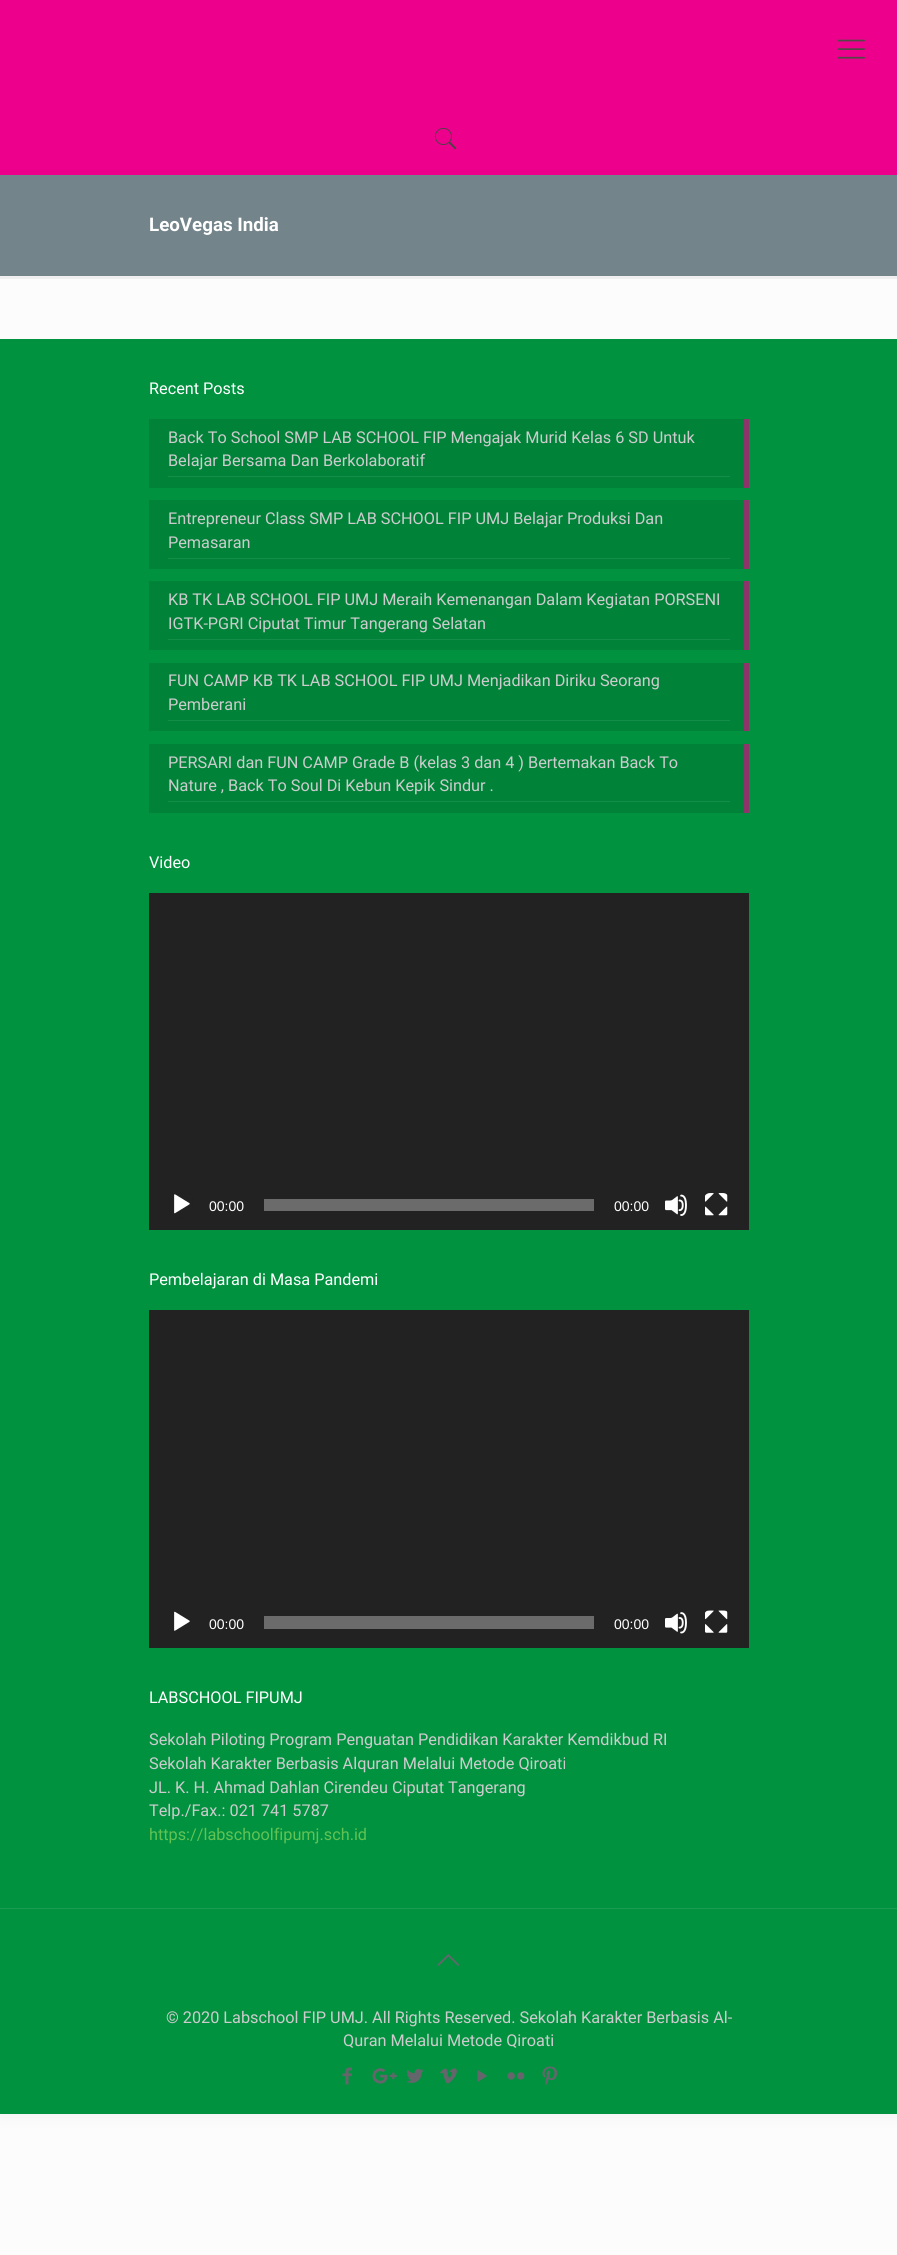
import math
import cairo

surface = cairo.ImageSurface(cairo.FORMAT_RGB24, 897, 2255)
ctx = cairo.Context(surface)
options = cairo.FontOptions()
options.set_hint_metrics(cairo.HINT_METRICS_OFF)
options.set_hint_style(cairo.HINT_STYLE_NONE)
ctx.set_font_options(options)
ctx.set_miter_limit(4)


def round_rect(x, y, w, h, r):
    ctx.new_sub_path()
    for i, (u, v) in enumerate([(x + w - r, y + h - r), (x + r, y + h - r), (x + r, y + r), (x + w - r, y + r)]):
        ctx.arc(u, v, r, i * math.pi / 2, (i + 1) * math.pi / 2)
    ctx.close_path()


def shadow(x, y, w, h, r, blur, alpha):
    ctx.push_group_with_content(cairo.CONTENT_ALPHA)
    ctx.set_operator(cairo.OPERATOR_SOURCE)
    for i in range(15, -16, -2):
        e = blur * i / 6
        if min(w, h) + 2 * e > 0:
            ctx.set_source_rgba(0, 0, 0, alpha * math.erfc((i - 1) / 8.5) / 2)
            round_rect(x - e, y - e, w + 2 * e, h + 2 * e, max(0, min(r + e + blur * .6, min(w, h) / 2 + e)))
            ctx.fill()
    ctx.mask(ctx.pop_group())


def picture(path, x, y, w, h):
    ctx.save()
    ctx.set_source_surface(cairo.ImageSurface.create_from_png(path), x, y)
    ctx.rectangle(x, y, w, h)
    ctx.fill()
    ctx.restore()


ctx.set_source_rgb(0.988, 0.988, 0.988)
ctx.paint()
ctx.set_source_rgb(0, 0, 0)
shadow(0, 0, 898, 2114, 0, 9.5, 0.06)
ctx.set_source_rgb(0.988, 0.988, 0.988)
ctx.rectangle(0, 279, 897, 60)
ctx.fill()
ctx.set_source_rgb(0.929, 0.004, 0.549)
ctx.rectangle(0, 0, 897, 175)
ctx.fill()
picture("img1.png", 837, 39, 28, 20)
picture("img2.png", 434, 127, 23, 23)
ctx.set_source_rgb(0.451, 0.518, 0.545)
ctx.rectangle(0, 175, 897, 101)
ctx.fill()
ctx.select_font_face("Roboto", cairo.FONT_SLANT_NORMAL, cairo.FONT_WEIGHT_BOLD)
ctx.set_font_size(18.75)
ctx.set_source_rgb(1, 1, 1)
ctx.move_to(149, 231)
ctx.show_text("LeoVegas India")
ctx.set_source_rgb(0.937, 0.937, 0.937)
ctx.rectangle(0, 276, 897, 3)
ctx.fill()
ctx.set_source_rgb(0, 0.573, 0.247)
ctx.rectangle(0, 339, 897, 1775)
ctx.fill()
ctx.select_font_face("Roboto")
ctx.set_font_size(16.25)
ctx.set_source_rgb(1, 1, 1)
ctx.move_to(149, 394)
ctx.show_text("Recent Posts")
ctx.set_source_rgb(0, 0.514, 0.224)
ctx.rectangle(149, 419, 595, 69)
ctx.fill()
ctx.set_source_rgb(0.078, 0.553, 0.286)
ctx.rectangle(168, 476, 562, 1)
ctx.fill()
ctx.set_source_rgb(0.8, 0.8, 0.8)
ctx.move_to(168, 443)
ctx.show_text("Back To School SMP LAB SCHOOL FIP Mengajak Murid Kelas 6 SD Untuk")
ctx.move_to(168, 466)
ctx.show_text("Belajar Bersama Dan Berkolaboratif")
ctx.set_source_rgb(0.553, 0.204, 0.42)
ctx.rectangle(744, 419, 5, 69)
ctx.fill()
ctx.set_source_rgb(0, 0.514, 0.224)
ctx.rectangle(149, 500, 595, 69)
ctx.fill()
ctx.set_source_rgb(0.078, 0.553, 0.286)
ctx.rectangle(168, 558, 562, 1)
ctx.fill()
ctx.set_source_rgb(0.8, 0.8, 0.8)
ctx.move_to(168, 524)
ctx.show_text("Entrepreneur Class SMP LAB SCHOOL FIP UMJ Belajar Produksi Dan")
ctx.move_to(168, 548)
ctx.show_text("Pemasaran")
ctx.set_source_rgb(0.553, 0.204, 0.42)
ctx.rectangle(744, 500, 5, 69)
ctx.fill()
ctx.set_source_rgb(0, 0.514, 0.224)
ctx.rectangle(149, 581, 595, 69)
ctx.fill()
ctx.set_source_rgb(0.078, 0.553, 0.286)
ctx.rectangle(168, 639, 562, 1)
ctx.fill()
ctx.set_source_rgb(0.8, 0.8, 0.8)
ctx.move_to(168, 605)
ctx.show_text("KB TK LAB SCHOOL FIP UMJ Meraih Kemenangan Dalam Kegiatan PORSENI")
ctx.move_to(168, 629)
ctx.show_text("IGTK-PGRI Ciputat Timur Tangerang Selatan")
ctx.set_source_rgb(0.553, 0.204, 0.42)
ctx.rectangle(744, 581, 5, 69)
ctx.fill()
ctx.set_source_rgb(0, 0.514, 0.224)
ctx.rectangle(149, 663, 595, 68)
ctx.fill()
ctx.set_source_rgb(0.078, 0.553, 0.286)
ctx.rectangle(168, 720, 562, 1)
ctx.fill()
ctx.set_source_rgb(0.8, 0.8, 0.8)
ctx.move_to(168, 686)
ctx.show_text("FUN CAMP KB TK LAB SCHOOL FIP UMJ Menjadikan Diriku Seorang")
ctx.move_to(168, 710)
ctx.show_text("Pemberani")
ctx.set_source_rgb(0.553, 0.204, 0.42)
ctx.rectangle(744, 663, 5, 68)
ctx.fill()
ctx.set_source_rgb(0, 0.514, 0.224)
ctx.rectangle(149, 744, 595, 69)
ctx.fill()
ctx.set_source_rgb(0.078, 0.553, 0.286)
ctx.rectangle(168, 801, 562, 1)
ctx.fill()
ctx.set_source_rgb(0.8, 0.8, 0.8)
ctx.move_to(168, 768)
ctx.show_text("PERSARI dan FUN CAMP Grade B (kelas 3 dan 4 ) Bertemakan Back To")
ctx.move_to(168, 791)
ctx.show_text("Nature , Back To Soul Di Kebun Kepik Sindur .")
ctx.set_source_rgb(0.553, 0.204, 0.42)
ctx.rectangle(744, 744, 5, 69)
ctx.fill()
ctx.set_source_rgb(1, 1, 1)
ctx.move_to(149, 868)
ctx.show_text("Video")
ctx.set_source_rgb(0.133, 0.133, 0.133)
ctx.rectangle(149, 893, 600, 337)
ctx.fill()
picture("img3.png", 174, 1194, 16, 20)
round_rect(169.5, 1193.5, 24, 24, 5.5)
ctx.set_source_rgb(0.129, 0.129, 0.129)
ctx.set_line_width(1)
ctx.stroke()
ctx.select_font_face("Liberation Sans")
ctx.set_font_size(14)
ctx.set_source_rgb(1, 1, 1)
ctx.move_to(209, 1211)
ctx.show_text("00:00")
ctx.set_source_rgb(0.42, 0.42, 0.42)
ctx.rectangle(264, 1199, 330, 12)
ctx.fill()
ctx.set_source_rgb(1, 1, 1)
ctx.move_to(614, 1211)
ctx.show_text("00:00")
picture("img4.png", 665, 1194, 22, 22)
picture("img5.png", 705, 1193, 23, 23)
ctx.rectangle(704.5, 1193.5, 24, 24)
ctx.set_source_rgba(0, 0, 0, 0.03)
ctx.stroke()
ctx.select_font_face("Roboto")
ctx.set_font_size(16.25)
ctx.set_source_rgb(1, 1, 1)
ctx.move_to(149, 1285)
ctx.show_text("Pembelajaran di Masa Pandemi")
ctx.set_source_rgb(0.133, 0.133, 0.133)
ctx.rectangle(149, 1310, 600, 338)
ctx.fill()
picture("img6.png", 174, 1611, 16, 20)
ctx.select_font_face("Liberation Sans")
ctx.set_font_size(14)
ctx.set_source_rgb(1, 1, 1)
ctx.move_to(209, 1629)
ctx.show_text("00:00")
ctx.set_source_rgb(0.42, 0.42, 0.42)
ctx.rectangle(264, 1616, 330, 13)
ctx.fill()
ctx.set_source_rgb(1, 1, 1)
ctx.move_to(614, 1629)
ctx.show_text("00:00")
picture("img7.png", 665, 1612, 22, 22)
picture("img8.png", 705, 1610, 23, 23)
ctx.rectangle(704.5, 1610.5, 24, 24)
ctx.set_source_rgba(0, 0, 0, 0.03)
ctx.stroke()
ctx.select_font_face("Roboto")
ctx.set_font_size(16.25)
ctx.set_source_rgb(1, 1, 1)
ctx.move_to(149, 1703)
ctx.show_text("LABSCHOOL FIPUMJ")
ctx.set_source_rgb(0.8, 0.8, 0.8)
ctx.move_to(149, 1745)
ctx.show_text("Sekolah Piloting Program Penguatan Pendidikan Karakter Kemdikbud RI")
ctx.move_to(149, 1769)
ctx.show_text("Sekolah Karakter Berbasis Alquran Melalui Metode Qiroati")
ctx.move_to(149, 1793)
ctx.show_text("JL. K. H. Ahmad Dahlan Cirendeu Ciputat Tangerang")
ctx.move_to(149, 1816)
ctx.show_text("Telp./Fax.: 021 741 5787")
ctx.set_source_rgb(0.384, 0.761, 0.329)
ctx.move_to(149, 1840)
ctx.show_text("https://labschoolfipumj.sch.id")
ctx.set_source_rgb(0.102, 0.616, 0.322)
ctx.rectangle(0, 1908, 897, 1)
ctx.fill()
picture("img9.png", 437, 1954, 22, 12)
ctx.set_source_rgb(0.8, 0.8, 0.8)
ctx.move_to(166, 2023)
ctx.show_text("© 2020 Labschool FIP UMJ. All Rights Reserved. Sekolah Karakter Berbasis Al-")
ctx.move_to(343, 2046)
ctx.show_text("Quran Melalui Metode Qiroati")
picture("img10.png", 342, 2067, 10, 18)
picture("img11.png", 372, 2068, 25, 16)
picture("img12.png", 406, 2069, 18, 14)
picture("img13.png", 440, 2068, 17, 16)
picture("img14.png", 477, 2070, 10, 12)
picture("img15.png", 507, 2072, 18, 8)
picture("img16.png", 542, 2066, 16, 20)
surface.write_to_png("page.png")
